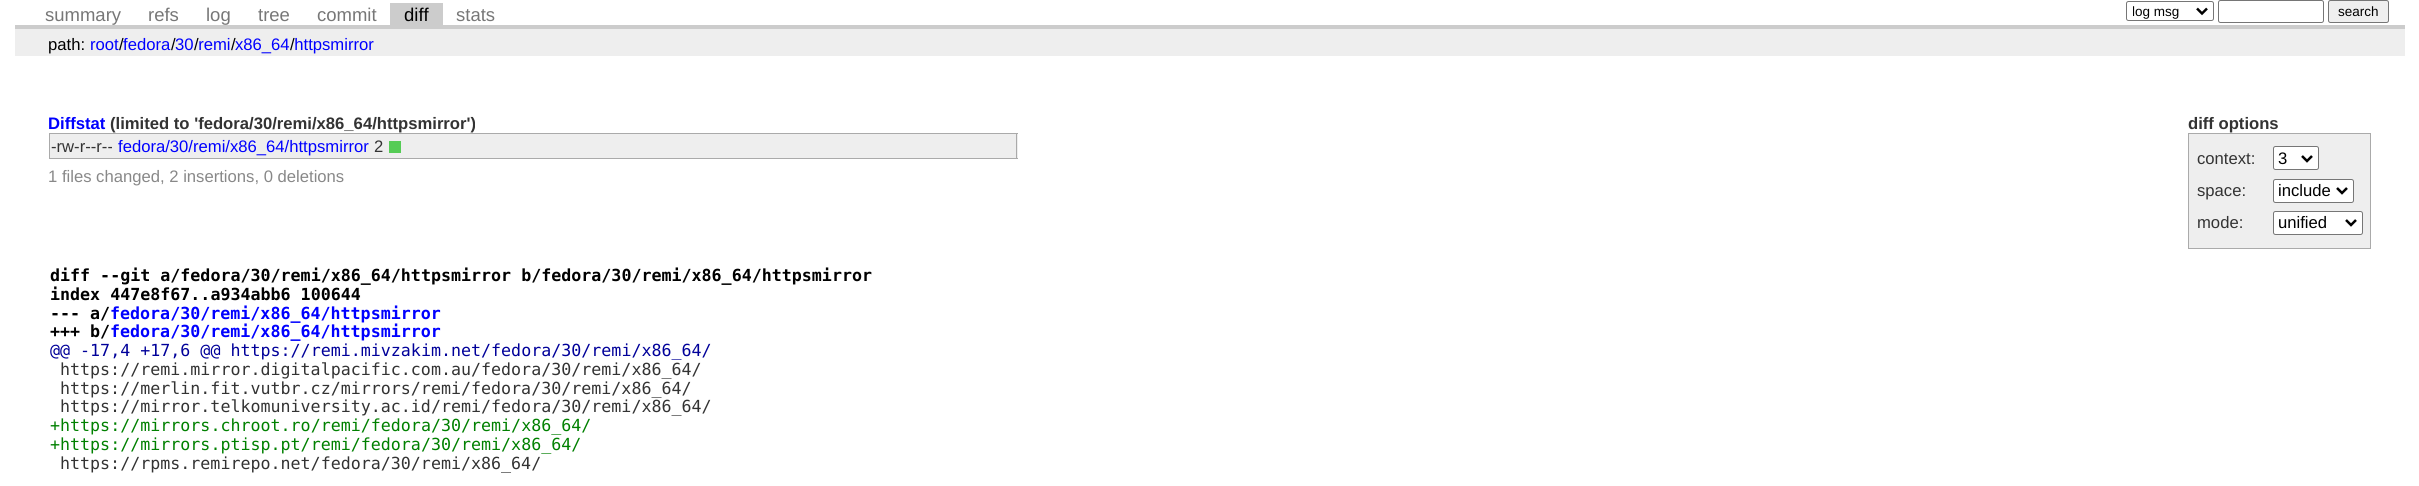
import math
import cairo

surface = cairo.ImageSurface(cairo.FORMAT_RGB24, 2419, 486)
ctx = cairo.Context(surface)
options = cairo.FontOptions()
options.set_hint_metrics(cairo.HINT_METRICS_OFF)
options.set_hint_style(cairo.HINT_STYLE_NONE)
ctx.set_font_options(options)
ctx.set_miter_limit(4)


def round_rect(x, y, w, h, r):
    ctx.new_sub_path()
    for i, (u, v) in enumerate([(x + w - r, y + h - r), (x + r, y + h - r), (x + r, y + r), (x + w - r, y + r)]):
        ctx.arc(u, v, r, i * math.pi / 2, (i + 1) * math.pi / 2)
    ctx.close_path()


ctx.set_source_rgb(1, 1, 1)
ctx.paint()
ctx.set_source_rgb(0.8, 0.8, 0.8)
ctx.rectangle(15, 25, 2390, 4)
ctx.fill()
ctx.select_font_face("Liberation Sans")
ctx.set_font_size(18.5)
ctx.set_source_rgb(0.467, 0.467, 0.467)
ctx.move_to(45, 21)
ctx.show_text("summary")
ctx.move_to(148, 21)
ctx.show_text("refs")
ctx.move_to(206, 21)
ctx.show_text("log")
ctx.move_to(258, 21)
ctx.show_text("tree")
ctx.move_to(317, 21)
ctx.show_text("commit")
ctx.set_source_rgb(0.8, 0.8, 0.8)
ctx.rectangle(390, 3, 53, 22)
ctx.fill()
ctx.set_source_rgb(0, 0, 0)
ctx.move_to(404, 21)
ctx.show_text("diff")
ctx.set_source_rgb(0.467, 0.467, 0.467)
ctx.move_to(456, 21)
ctx.show_text("stats")
round_rect(2126.5, 1.5, 87, 19, 2)
ctx.set_source_rgb(0.463, 0.463, 0.463)
ctx.set_line_width(1)
ctx.stroke()
ctx.new_path()
ctx.move_to(2197, 8.5)
ctx.line_to(2202, 13.5)
ctx.line_to(2207, 8.5)
ctx.set_source_rgb(0, 0, 0)
ctx.set_line_width(2.5)
ctx.stroke()
ctx.save()
ctx.rectangle(2133, 3, 60, 17)
ctx.clip()
ctx.set_font_size(13.5)
ctx.move_to(2132, 16)
ctx.show_text("log msg")
ctx.restore()
round_rect(2218.5, 0.5, 105, 22, 2)
ctx.set_source_rgb(0.463, 0.463, 0.463)
ctx.set_line_width(1)
ctx.stroke()
ctx.set_source_rgb(0.937, 0.937, 0.937)
round_rect(2328.5, 0.5, 60, 22, 2)
ctx.fill_preserve()
ctx.set_source_rgb(0.463, 0.463, 0.463)
ctx.stroke()
ctx.set_font_size(13.5)
ctx.set_source_rgb(0, 0, 0)
ctx.move_to(2338, 16)
ctx.show_text("search")
ctx.set_source_rgb(0.933, 0.933, 0.933)
ctx.rectangle(15, 29, 2390, 27)
ctx.fill()
ctx.set_font_size(16.65)
ctx.set_source_rgb(0, 0, 0)
ctx.move_to(48, 50)
ctx.show_text("path:")
ctx.set_source_rgb(0, 0, 1)
ctx.move_to(90, 50)
ctx.show_text("root")
ctx.set_source_rgb(0, 0, 0)
ctx.move_to(119, 50)
ctx.show_text("/")
ctx.set_source_rgb(0, 0, 1)
ctx.move_to(123, 50)
ctx.show_text("fedora")
ctx.set_source_rgb(0, 0, 0)
ctx.move_to(171, 50)
ctx.show_text("/")
ctx.set_source_rgb(0, 0, 1)
ctx.move_to(175, 50)
ctx.show_text("30 remi")
ctx.set_source_rgb(0, 0, 0)
ctx.move_to(194, 50)
ctx.show_text("/")
ctx.move_to(231, 50)
ctx.show_text("/")
ctx.set_source_rgb(0, 0, 1)
ctx.move_to(235, 50)
ctx.show_text("x86_64 httpsmirror")
ctx.set_source_rgb(0, 0, 0)
ctx.move_to(290, 50)
ctx.show_text("/")
ctx.select_font_face("Liberation Sans", cairo.FONT_SLANT_NORMAL, cairo.FONT_WEIGHT_BOLD)
ctx.set_source_rgb(0, 0, 1)
ctx.move_to(48, 129)
ctx.show_text("Diffstat")
ctx.set_source_rgb(0.2, 0.2, 0.2)
ctx.move_to(110, 129)
ctx.show_text("(limited to 'fedora/30/remi/x86_64/httpsmirror')")
ctx.move_to(2188, 129)
ctx.show_text("diff options")
ctx.set_source_rgb(0.933, 0.933, 0.933)
ctx.rectangle(2189, 134, 181, 114)
ctx.fill()
ctx.set_source_rgb(0.667, 0.667, 0.667)
ctx.rectangle(2188, 133, 183, 1)
ctx.fill()
ctx.rectangle(2370, 133, 1, 116)
ctx.fill()
ctx.rectangle(2188, 248, 183, 1)
ctx.fill()
ctx.rectangle(2188, 133, 1, 116)
ctx.fill()
ctx.select_font_face("Liberation Sans")
ctx.set_source_rgb(0.2, 0.2, 0.2)
ctx.move_to(2197, 164)
ctx.show_text("context:")
ctx.set_source_rgb(1, 1, 1)
round_rect(2273.5, 146.5, 45, 23, 2)
ctx.fill_preserve()
ctx.set_source_rgb(0.463, 0.463, 0.463)
ctx.stroke()
ctx.new_path()
ctx.move_to(2302, 156)
ctx.line_to(2307, 161)
ctx.line_to(2312, 156)
ctx.set_source_rgb(0, 0, 0)
ctx.set_line_width(2.5)
ctx.stroke()
ctx.move_to(2278, 164)
ctx.show_text("3")
ctx.set_source_rgb(0.2, 0.2, 0.2)
ctx.move_to(2197, 196)
ctx.show_text("space:")
ctx.set_source_rgb(1, 1, 1)
round_rect(2273.5, 179.5, 80, 23, 2)
ctx.fill_preserve()
ctx.set_source_rgb(0.463, 0.463, 0.463)
ctx.set_line_width(1)
ctx.stroke()
ctx.new_path()
ctx.move_to(2337, 188)
ctx.line_to(2342, 193)
ctx.line_to(2347, 188)
ctx.set_source_rgb(0, 0, 0)
ctx.set_line_width(2.5)
ctx.stroke()
ctx.move_to(2278, 196)
ctx.show_text("include")
ctx.set_source_rgb(0.2, 0.2, 0.2)
ctx.move_to(2197, 228)
ctx.show_text("mode:")
ctx.set_source_rgb(1, 1, 1)
round_rect(2273.5, 211.5, 89, 23, 2)
ctx.fill_preserve()
ctx.set_source_rgb(0.463, 0.463, 0.463)
ctx.set_line_width(1)
ctx.stroke()
ctx.new_path()
ctx.move_to(2346, 220)
ctx.line_to(2351, 225)
ctx.line_to(2356, 220)
ctx.set_source_rgb(0, 0, 0)
ctx.set_line_width(2.5)
ctx.stroke()
ctx.move_to(2278, 228)
ctx.show_text("unified")
ctx.set_source_rgb(0.933, 0.933, 0.933)
ctx.rectangle(50, 134, 968, 24)
ctx.fill()
ctx.set_source_rgb(0.667, 0.667, 0.667)
ctx.rectangle(49, 133, 969, 1)
ctx.fill()
ctx.rectangle(1016, 133, 1, 26)
ctx.fill()
ctx.rectangle(49, 158, 969, 1)
ctx.fill()
ctx.rectangle(49, 133, 1, 26)
ctx.fill()
ctx.set_source_rgb(0.2, 0.2, 0.2)
ctx.move_to(51, 152)
ctx.show_text("-rw-r--r--")
ctx.set_source_rgb(0, 0, 1)
ctx.move_to(118, 152)
ctx.show_text("fedora/30/remi/x86_64/httpsmirror")
ctx.set_source_rgb(0.2, 0.2, 0.2)
ctx.move_to(374, 152)
ctx.show_text("2")
ctx.set_source_rgb(0.333, 0.8, 0.333)
ctx.rectangle(389, 141, 12, 12)
ctx.fill()
ctx.set_source_rgb(0.533, 0.533, 0.533)
ctx.move_to(48, 182)
ctx.show_text("1 files changed, 2 insertions, 0 deletions")
ctx.select_font_face("DejaVu Sans Mono", cairo.FONT_SLANT_NORMAL, cairo.FONT_WEIGHT_BOLD)
ctx.set_source_rgb(0, 0, 0)
ctx.move_to(50, 281)
ctx.show_text("diff --git a/fedora/30/remi/x86_64/httpsmirror b/fedora/30/remi/x86_64/httpsmirror")
ctx.move_to(50, 300)
ctx.show_text("index 447e8f67..a934abb6 100644")
ctx.move_to(50, 319)
ctx.show_text("--- a/")
ctx.set_source_rgb(0, 0, 1)
ctx.move_to(110, 319)
ctx.show_text("fedora/30/remi/x86_64/httpsmirror")
ctx.set_source_rgb(0, 0, 0)
ctx.move_to(50, 337)
ctx.show_text("+++ b/")
ctx.set_source_rgb(0, 0, 1)
ctx.move_to(110, 337)
ctx.show_text("fedora/30/remi/x86_64/httpsmirror")
ctx.select_font_face("DejaVu Sans Mono")
ctx.set_source_rgb(0, 0, 0.6)
ctx.move_to(50, 356)
ctx.show_text("@@ -17,4 +17,6 @@ https://remi.mivzakim.net/fedora/30/remi/x86_64/")
ctx.set_source_rgb(0.2, 0.2, 0.2)
ctx.move_to(60, 375)
ctx.show_text("https://remi.mirror.digitalpacific.com.au/fedora/30/remi/x86_64/")
ctx.move_to(60, 394)
ctx.show_text("https://merlin.fit.vutbr.cz/mirrors/remi/fedora/30/remi/x86_64/")
ctx.move_to(60, 412)
ctx.show_text("https://mirror.telkomuniversity.ac.id/remi/fedora/30/remi/x86_64/")
ctx.set_source_rgb(0, 0.502, 0)
ctx.move_to(50, 431)
ctx.show_text("+https://mirrors.chroot.ro/remi/fedora/30/remi/x86_64/")
ctx.move_to(50, 450)
ctx.show_text("+https://mirrors.ptisp.pt/remi/fedora/30/remi/x86_64/")
ctx.set_source_rgb(0.2, 0.2, 0.2)
ctx.move_to(60, 469)
ctx.show_text("https://rpms.remirepo.net/fedora/30/remi/x86_64/")
surface.write_to_png("page.png")
